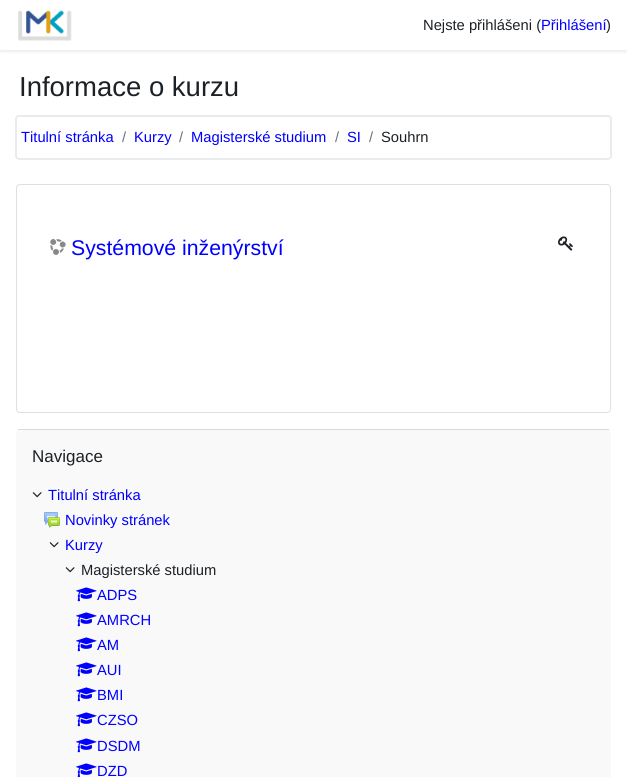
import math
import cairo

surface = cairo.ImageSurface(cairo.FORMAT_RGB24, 627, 777)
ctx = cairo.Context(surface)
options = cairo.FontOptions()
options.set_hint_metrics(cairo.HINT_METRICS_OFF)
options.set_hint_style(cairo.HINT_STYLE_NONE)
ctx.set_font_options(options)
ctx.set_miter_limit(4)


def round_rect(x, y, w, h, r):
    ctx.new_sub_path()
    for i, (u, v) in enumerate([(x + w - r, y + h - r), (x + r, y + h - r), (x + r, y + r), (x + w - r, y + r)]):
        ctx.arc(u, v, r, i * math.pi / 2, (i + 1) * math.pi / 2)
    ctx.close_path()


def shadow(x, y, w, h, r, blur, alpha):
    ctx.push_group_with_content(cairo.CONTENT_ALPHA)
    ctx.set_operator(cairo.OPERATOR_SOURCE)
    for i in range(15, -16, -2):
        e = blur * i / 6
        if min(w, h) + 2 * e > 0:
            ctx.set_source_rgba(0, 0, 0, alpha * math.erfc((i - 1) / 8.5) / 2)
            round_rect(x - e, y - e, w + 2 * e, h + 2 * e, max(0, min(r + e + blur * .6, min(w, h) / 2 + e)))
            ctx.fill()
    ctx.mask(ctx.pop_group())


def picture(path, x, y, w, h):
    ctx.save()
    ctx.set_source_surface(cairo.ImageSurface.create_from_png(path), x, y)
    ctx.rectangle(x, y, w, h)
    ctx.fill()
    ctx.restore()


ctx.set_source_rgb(1, 1, 1)
ctx.paint()
ctx.save()
ctx.rectangle(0, 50, 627, 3)
ctx.clip()
ctx.set_source_rgb(0, 0, 0)
shadow(0, 2, 627, 50, 0, 2, 0.08)
ctx.restore()
picture("img1.png", 18, 10, 54, 31)
ctx.select_font_face("Liberation Sans")
ctx.set_font_size(14.75)
ctx.set_source_rgb(0.114, 0.129, 0.145)
ctx.move_to(423, 30)
ctx.show_text("Nejste přihlášeni (")
ctx.set_source_rgb(0, 0, 1)
ctx.move_to(541, 30)
ctx.show_text("Přihlášení")
ctx.set_source_rgb(0.114, 0.129, 0.145)
ctx.move_to(606, 30)
ctx.show_text(")")
ctx.set_font_size(27.5)
ctx.move_to(19, 96)
ctx.show_text("Informace o kurzu")
round_rect(16, 116, 595, 43, 3)
ctx.set_source_rgb(0.914, 0.925, 0.937)
ctx.stroke()
ctx.set_font_size(14.75)
ctx.set_source_rgb(0, 0, 1)
ctx.move_to(21, 142)
ctx.show_text("Titulní stránka")
ctx.set_source_rgb(0.416, 0.451, 0.482)
ctx.move_to(122, 142)
ctx.show_text("/")
ctx.set_source_rgb(0, 0, 1)
ctx.move_to(134, 142)
ctx.show_text("Kurzy")
ctx.set_source_rgb(0.416, 0.451, 0.482)
ctx.move_to(179, 142)
ctx.show_text("/")
ctx.set_source_rgb(0, 0, 1)
ctx.move_to(191, 142)
ctx.show_text("Magisterské studium")
ctx.set_source_rgb(0.416, 0.451, 0.482)
ctx.move_to(335, 142)
ctx.show_text("/")
ctx.set_source_rgb(0, 0, 1)
ctx.move_to(347, 142)
ctx.show_text("SI")
ctx.set_source_rgb(0.416, 0.451, 0.482)
ctx.move_to(369, 142)
ctx.show_text("/")
ctx.set_source_rgb(0.114, 0.129, 0.145)
ctx.move_to(381, 142)
ctx.show_text("Souhrn")
round_rect(16.5, 184.5, 594, 228, 3.5)
ctx.set_source_rgb(0.875, 0.875, 0.875)
ctx.set_line_width(1)
ctx.stroke()
picture("img2.png", 50, 239, 16, 16)
ctx.set_font_size(21.25)
ctx.set_source_rgb(0, 0, 1)
ctx.move_to(71, 255)
ctx.show_text("Systémové inženýrství")
picture("img3.png", 558, 236, 15, 15)
ctx.set_source_rgb(0.973, 0.976, 0.98)
round_rect(16, 429, 595, 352, 4)
ctx.fill()
ctx.set_source_rgb(0.851, 0.855, 0.859)
ctx.rectangle(18, 429, 591, 1)
ctx.fill()
ctx.set_font_size(17)
ctx.set_source_rgb(0.114, 0.129, 0.145)
ctx.move_to(32, 462)
ctx.show_text("Navigace")
picture("img4.png", 32, 492, 10, 6)
ctx.set_font_size(14.75)
ctx.set_source_rgb(0, 0, 1)
ctx.move_to(48, 500)
ctx.show_text("Titulní stránka")
picture("img5.png", 44, 512, 16, 16)
ctx.move_to(65, 525)
ctx.show_text("Novinky stránek")
picture("img4.png", 49, 542, 10, 6)
ctx.move_to(65, 550)
ctx.show_text("Kurzy")
picture("img4.png", 65, 567, 10, 6)
ctx.set_source_rgb(0.114, 0.129, 0.145)
ctx.move_to(81, 575)
ctx.show_text("Magisterské studium")
picture("img6.png", 76, 587, 21, 15)
ctx.set_source_rgb(0, 0, 1)
ctx.move_to(97, 600)
ctx.show_text("ADPS")
picture("img6.png", 76, 612, 21, 15)
ctx.move_to(97, 625)
ctx.show_text("AMRCH")
picture("img6.png", 76, 637, 21, 15)
ctx.move_to(97, 650)
ctx.show_text("AM")
picture("img6.png", 76, 662, 21, 15)
ctx.move_to(97, 675)
ctx.show_text("AUI")
picture("img6.png", 76, 687, 21, 15)
ctx.move_to(97, 700)
ctx.show_text("BMI")
picture("img6.png", 76, 712, 21, 15)
ctx.move_to(97, 725)
ctx.show_text("CZSO")
picture("img6.png", 76, 738, 21, 15)
ctx.move_to(97, 751)
ctx.show_text("DSDM")
picture("img7.png", 76, 763, 21, 14)
ctx.move_to(97, 776)
ctx.show_text("DZD")
surface.write_to_png("page.png")
